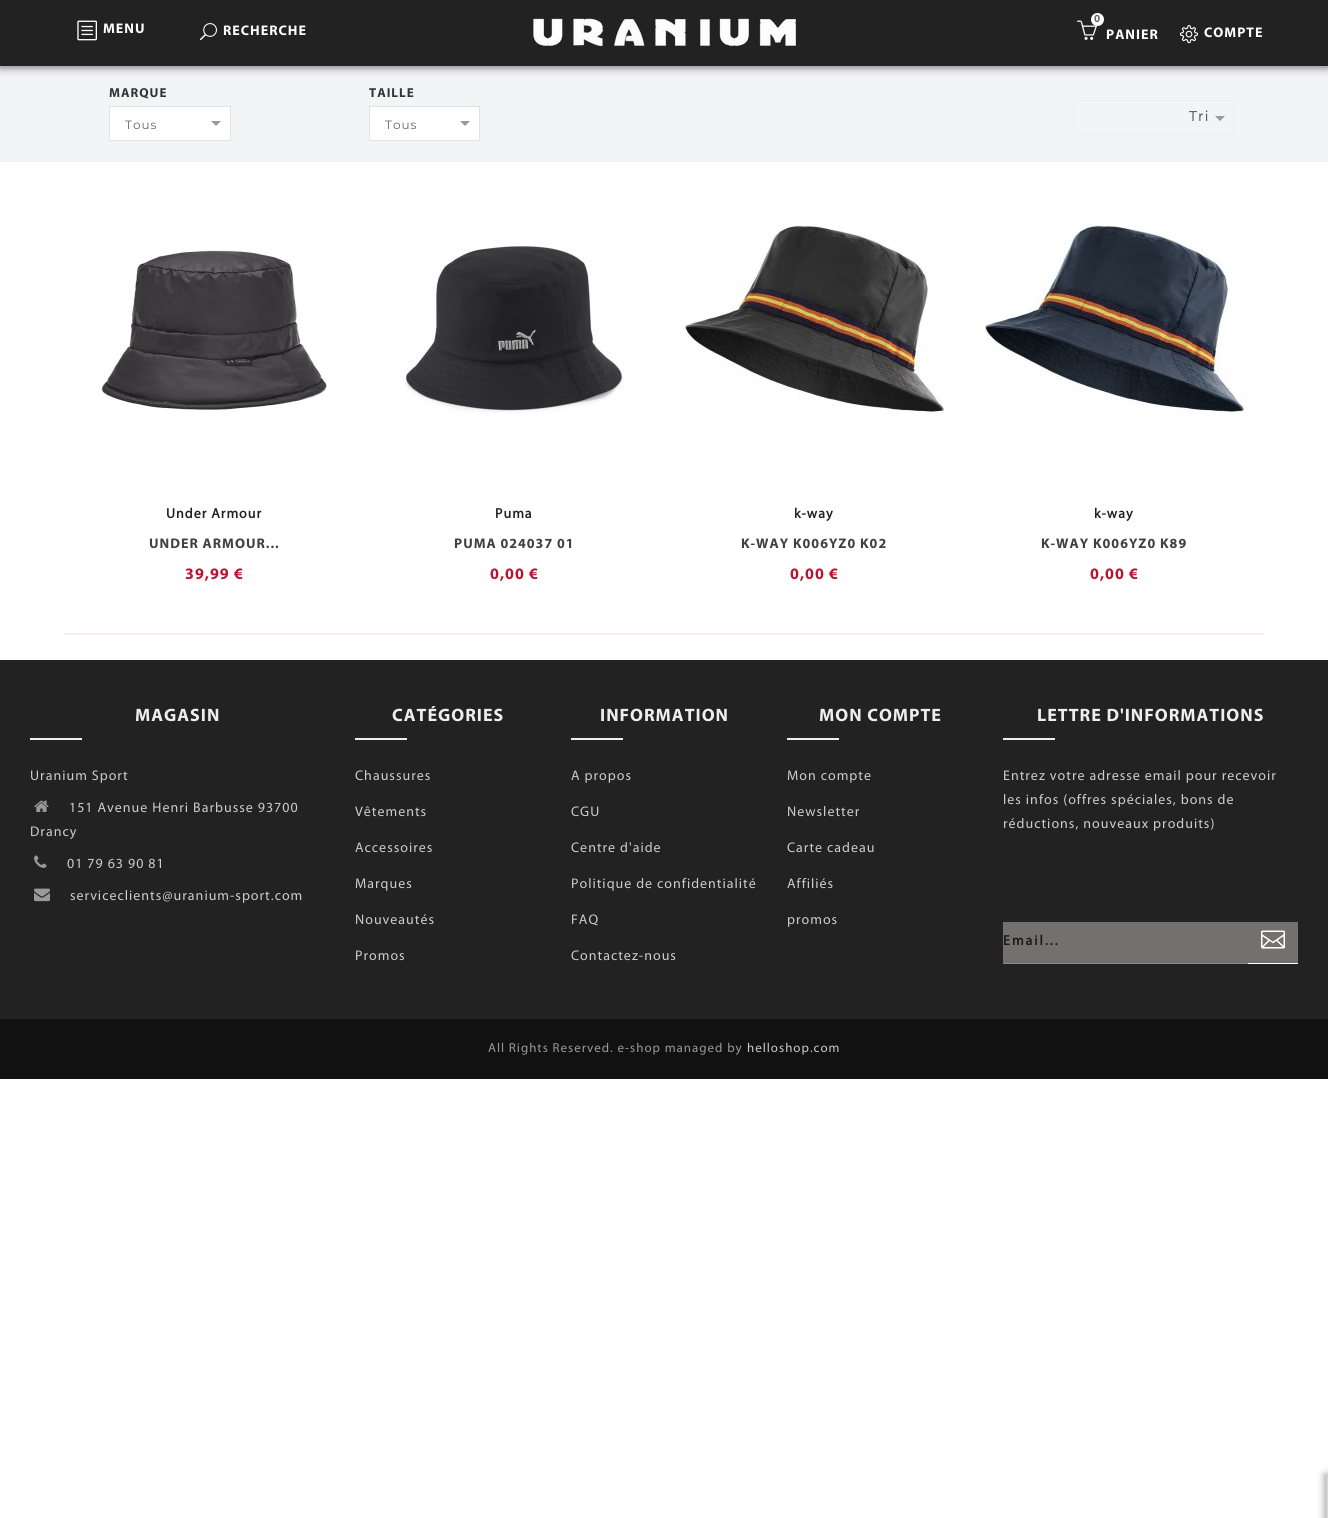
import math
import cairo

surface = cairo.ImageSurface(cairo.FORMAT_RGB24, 1328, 1518)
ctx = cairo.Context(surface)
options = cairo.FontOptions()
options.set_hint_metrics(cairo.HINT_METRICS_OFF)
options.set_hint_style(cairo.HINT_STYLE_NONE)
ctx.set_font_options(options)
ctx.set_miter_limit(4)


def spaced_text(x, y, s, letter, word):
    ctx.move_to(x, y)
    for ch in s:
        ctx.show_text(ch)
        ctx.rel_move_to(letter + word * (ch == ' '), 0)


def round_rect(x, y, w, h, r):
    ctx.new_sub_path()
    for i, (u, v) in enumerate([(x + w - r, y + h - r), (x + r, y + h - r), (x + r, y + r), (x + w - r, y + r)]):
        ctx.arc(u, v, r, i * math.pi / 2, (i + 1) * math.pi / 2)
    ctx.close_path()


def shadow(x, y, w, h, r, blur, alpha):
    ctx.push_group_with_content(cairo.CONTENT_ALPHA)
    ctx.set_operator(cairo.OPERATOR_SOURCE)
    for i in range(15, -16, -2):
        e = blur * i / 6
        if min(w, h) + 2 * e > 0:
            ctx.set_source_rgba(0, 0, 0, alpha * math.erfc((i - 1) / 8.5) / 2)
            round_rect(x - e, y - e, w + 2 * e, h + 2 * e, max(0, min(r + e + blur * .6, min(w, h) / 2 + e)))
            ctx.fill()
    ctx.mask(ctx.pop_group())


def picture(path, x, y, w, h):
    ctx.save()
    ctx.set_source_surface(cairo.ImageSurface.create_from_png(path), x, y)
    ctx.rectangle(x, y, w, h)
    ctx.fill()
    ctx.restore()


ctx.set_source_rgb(1, 1, 1)
ctx.paint()
ctx.set_source_rgb(0.953, 0.957, 0.961)
ctx.rectangle(0, 68, 1328, 93)
ctx.fill()
ctx.set_source_rgb(0.933, 0.933, 0.933)
ctx.rectangle(0, 67, 1328, 1)
ctx.fill()
ctx.set_source_rgb(0, 0, 0)
shadow(0, 0, 1328, 66, 0, 5, 0.7)
ctx.set_source_rgb(0.133, 0.133, 0.133)
ctx.rectangle(0, 0, 1328, 66)
ctx.fill()
picture("img1.png", 77, 20, 20, 21)
ctx.select_font_face("Myriad", cairo.FONT_SLANT_NORMAL, cairo.FONT_WEIGHT_BOLD)
ctx.set_font_size(14)
ctx.set_source_rgb(1, 1, 1)
spaced_text(103, 33, "MENU", 1, 0)
picture("img2.png", 200, 23, 17, 18)
spaced_text(223, 35, "RECHERCHE", 1, 0)
picture("img3.png", 533, 18, 263, 29)
picture("img4.png", 1077, 20, 20, 20)
ctx.arc(1097.5, 19.5, 6.5, 0, 2 * math.pi)
ctx.fill()
ctx.set_font_size(11)
ctx.set_source_rgb(0.4, 0.4, 0.4)
ctx.move_to(1094, 22)
ctx.show_text("0")
ctx.set_font_size(14)
ctx.set_source_rgb(1, 1, 1)
spaced_text(1106, 39, "PANIER", 1, 0)
picture("img5.png", 1180, 25, 18, 19)
spaced_text(1204, 37, "COMPTE", 1, 0)
ctx.set_source_rgb(0.933, 0.933, 0.933)
ctx.rectangle(0, 161, 1328, 1)
ctx.fill()
ctx.set_font_size(13)
ctx.set_source_rgb(0.2, 0.2, 0.2)
spaced_text(109, 97, "MARQUE", 1, 0)
ctx.set_source_rgb(1, 1, 1)
ctx.rectangle(109.5, 106.5, 121, 34)
ctx.fill_preserve()
ctx.set_source_rgb(0.882, 0.886, 0.89)
ctx.set_line_width(1)
ctx.stroke()
ctx.select_font_face("Montserrat")
ctx.set_font_size(12)
ctx.set_source_rgb(0.4, 0.4, 0.4)
spaced_text(125, 129, "Tous", 1, 0)
ctx.set_source_rgb(0.6, 0.6, 0.6)
ctx.new_path()
ctx.move_to(211, 121)
ctx.line_to(221, 121)
ctx.line_to(216, 126)
ctx.close_path()
ctx.fill()
ctx.select_font_face("Myriad", cairo.FONT_SLANT_NORMAL, cairo.FONT_WEIGHT_BOLD)
ctx.set_font_size(13)
ctx.set_source_rgb(0.2, 0.2, 0.2)
spaced_text(369, 97, "TAILLE", 1, 0)
ctx.set_source_rgb(1, 1, 1)
ctx.rectangle(369.5, 106.5, 110, 34)
ctx.fill_preserve()
ctx.set_source_rgb(0.882, 0.886, 0.89)
ctx.stroke()
ctx.select_font_face("Montserrat")
ctx.set_font_size(12)
ctx.set_source_rgb(0.4, 0.4, 0.4)
spaced_text(385, 129, "Tous", 1, 0)
ctx.set_source_rgb(0.6, 0.6, 0.6)
ctx.new_path()
ctx.move_to(460, 121)
ctx.line_to(470, 121)
ctx.line_to(465, 126)
ctx.close_path()
ctx.fill()
ctx.rectangle(1073.5, 100.5, 160, 34)
ctx.set_source_rgb(0.933, 0.933, 0.933)
ctx.stroke()
ctx.set_font_size(14)
ctx.set_source_rgb(0.251, 0.251, 0.251)
spaced_text(1189, 121, "Tri", 1, 0)
ctx.set_source_rgb(0.6, 0.6, 0.6)
ctx.new_path()
ctx.move_to(1215, 116)
ctx.line_to(1225, 116)
ctx.line_to(1220, 121)
ctx.close_path()
ctx.fill()
ctx.set_source_rgb(0.984, 0.929, 0.929)
ctx.rectangle(64, 633, 1200, 2)
ctx.fill()
picture("img6.png", 101, 250, 226, 160)
ctx.select_font_face("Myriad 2", cairo.FONT_SLANT_NORMAL, cairo.FONT_WEIGHT_BOLD)
ctx.set_source_rgb(0.129, 0.129, 0.129)
spaced_text(166, 518, "Under Armour", 1, 0)
ctx.select_font_face("Myriad", cairo.FONT_SLANT_NORMAL, cairo.FONT_WEIGHT_BOLD)
ctx.set_source_rgb(0.251, 0.251, 0.251)
spaced_text(149, 548, "UNDER ARMOUR...", 1, 0)
ctx.set_font_size(16)
ctx.set_source_rgb(0.733, 0.071, 0.192)
spaced_text(185, 579, "39,99 €", 1, 0)
picture("img7.png", 403, 246, 223, 167)
ctx.select_font_face("Myriad 2", cairo.FONT_SLANT_NORMAL, cairo.FONT_WEIGHT_BOLD)
ctx.set_font_size(14)
ctx.set_source_rgb(0.129, 0.129, 0.129)
spaced_text(495, 518, "Puma", 1, 0)
ctx.select_font_face("Myriad", cairo.FONT_SLANT_NORMAL, cairo.FONT_WEIGHT_BOLD)
ctx.set_source_rgb(0.251, 0.251, 0.251)
spaced_text(454, 548, "PUMA 024037 01", 1, 0)
ctx.set_font_size(16)
ctx.set_source_rgb(0.733, 0.071, 0.192)
spaced_text(490, 579, "0,00 €", 1, 0)
picture("img8.png", 681, 223, 268, 191)
ctx.select_font_face("Myriad 2", cairo.FONT_SLANT_NORMAL, cairo.FONT_WEIGHT_BOLD)
ctx.set_font_size(14)
ctx.set_source_rgb(0.129, 0.129, 0.129)
spaced_text(794, 518, "k-way", 1, 0)
ctx.select_font_face("Myriad", cairo.FONT_SLANT_NORMAL, cairo.FONT_WEIGHT_BOLD)
ctx.set_source_rgb(0.251, 0.251, 0.251)
spaced_text(741, 548, "K-WAY K006YZ0 K02", 1, 0)
ctx.set_font_size(16)
ctx.set_source_rgb(0.733, 0.071, 0.192)
spaced_text(790, 579, "0,00 €", 1, 0)
picture("img9.png", 979, 222, 270, 192)
ctx.select_font_face("Myriad 2", cairo.FONT_SLANT_NORMAL, cairo.FONT_WEIGHT_BOLD)
ctx.set_font_size(14)
ctx.set_source_rgb(0.129, 0.129, 0.129)
spaced_text(1094, 518, "k-way", 1, 0)
ctx.select_font_face("Myriad", cairo.FONT_SLANT_NORMAL, cairo.FONT_WEIGHT_BOLD)
ctx.set_source_rgb(0.251, 0.251, 0.251)
spaced_text(1041, 548, "K-WAY K006YZ0 K89", 1, 0)
ctx.set_font_size(16)
ctx.set_source_rgb(0.733, 0.071, 0.192)
spaced_text(1090, 579, "0,00 €", 1, 0)
ctx.set_source_rgb(0.133, 0.133, 0.133)
ctx.rectangle(0, 660, 1328, 359)
ctx.fill()
ctx.set_font_size(18)
ctx.set_source_rgb(0.933, 0.933, 0.933)
spaced_text(135, 721, "MAGASIN", 1, 0)
ctx.rectangle(30, 738, 52, 2)
ctx.fill()
ctx.select_font_face("Myriad")
ctx.set_font_size(14)
ctx.set_source_rgb(0.8, 0.8, 0.8)
spaced_text(30, 780, "Uranium Sport", 1, 0)
picture("img10.png", 34, 800, 15, 12)
spaced_text(69, 812, "151 Avenue Henri Barbusse 93700", 1, 0)
spaced_text(30, 836, "Drancy", 1, 0)
picture("img11.png", 34, 855, 13, 13)
spaced_text(67, 868, "01 79 63 90 81", 1, 0)
picture("img12.png", 34, 888, 16, 14)
spaced_text(70, 900, "serviceclients@uranium-sport.com", 1, 0)
ctx.select_font_face("Myriad", cairo.FONT_SLANT_NORMAL, cairo.FONT_WEIGHT_BOLD)
ctx.set_font_size(18)
ctx.set_source_rgb(0.933, 0.933, 0.933)
spaced_text(392, 721, "CATÉGORIES", 1, 0)
ctx.rectangle(355, 738, 52, 2)
ctx.fill()
ctx.select_font_face("Myriad")
ctx.set_font_size(14)
ctx.set_source_rgb(0.8, 0.8, 0.8)
spaced_text(355, 780, "Chaussures", 1, 0)
spaced_text(355, 816, "Vêtements", 1, 0)
spaced_text(355, 852, "Accessoires", 1, 0)
spaced_text(355, 888, "Marques", 1, 0)
spaced_text(355, 924, "Nouveautés", 1, 0)
spaced_text(355, 960, "Promos", 1, 0)
ctx.select_font_face("Myriad", cairo.FONT_SLANT_NORMAL, cairo.FONT_WEIGHT_BOLD)
ctx.set_font_size(18)
ctx.set_source_rgb(0.933, 0.933, 0.933)
spaced_text(600, 721, "INFORMATION", 1, 0)
ctx.rectangle(571, 738, 52, 2)
ctx.fill()
ctx.select_font_face("Myriad")
ctx.set_font_size(14)
ctx.set_source_rgb(0.8, 0.8, 0.8)
spaced_text(571, 780, "A propos", 1, 0)
spaced_text(571, 816, "CGU", 1, 0)
spaced_text(571, 852, "Centre d'aide", 1, 0)
spaced_text(571, 888, "Politique de confidentialité", 1, 0)
spaced_text(571, 924, "FAQ", 1, 0)
spaced_text(571, 960, "Contactez-nous", 1, 0)
ctx.select_font_face("Myriad", cairo.FONT_SLANT_NORMAL, cairo.FONT_WEIGHT_BOLD)
ctx.set_font_size(18)
ctx.set_source_rgb(0.933, 0.933, 0.933)
spaced_text(819, 721, "MON COMPTE", 1, 0)
ctx.rectangle(787, 738, 52, 2)
ctx.fill()
ctx.select_font_face("Myriad")
ctx.set_font_size(14)
ctx.set_source_rgb(0.8, 0.8, 0.8)
spaced_text(787, 780, "Mon compte", 1, 0)
spaced_text(787, 816, "Newsletter", 1, 0)
spaced_text(787, 852, "Carte cadeau", 1, 0)
spaced_text(787, 888, "Affiliés", 1, 0)
spaced_text(787, 924, "promos", 1, 0)
ctx.select_font_face("Myriad", cairo.FONT_SLANT_NORMAL, cairo.FONT_WEIGHT_BOLD)
ctx.set_font_size(18)
ctx.set_source_rgb(0.933, 0.933, 0.933)
spaced_text(1037, 721, "LETTRE D'INFORMATIONS", 1, 0)
ctx.rectangle(1003, 738, 52, 2)
ctx.fill()
ctx.select_font_face("Myriad")
ctx.set_font_size(14)
ctx.set_source_rgb(0.8, 0.8, 0.8)
spaced_text(1003, 780, "Entrez votre adresse email pour recevoir", 1, 0)
spaced_text(1003, 804, "les infos (offres spéciales, bons de", 1, 0)
spaced_text(1003, 828, "réductions, nouveaux produits)", 1, 0)
ctx.set_source_rgb(0.451, 0.439, 0.439)
ctx.rectangle(1003, 922, 295, 41)
ctx.fill()
ctx.set_source_rgb(0.533, 0.533, 0.533)
ctx.rectangle(1003, 963, 245, 1)
ctx.fill()
ctx.select_font_face("Myriad 2", cairo.FONT_SLANT_NORMAL, cairo.FONT_WEIGHT_BOLD)
ctx.set_source_rgb(0.098, 0.098, 0.098)
spaced_text(1003, 945, "Email...", 2, 0)
picture("img13.png", 1261, 930, 24, 19)
ctx.set_source_rgb(1, 1, 1)
ctx.rectangle(1248, 963, 50, 1)
ctx.fill()
ctx.set_source_rgb(0.067, 0.067, 0.067)
ctx.rectangle(0, 1019, 1328, 60)
ctx.fill()
ctx.select_font_face("Myriad")
ctx.set_font_size(13)
ctx.set_source_rgb(0.6, 0.6, 0.6)
spaced_text(488, 1052, "All Rights Reserved. e-shop managed by", 1, 0)
ctx.set_source_rgb(0.8, 0.8, 0.8)
spaced_text(747, 1052, "helloshop.com", 1, 0)
ctx.set_source_rgb(0, 0, 0)
shadow(1326, 1476, 2, 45, 1, 4.5, 0.5)
ctx.set_source_rgb(0.827, 0.827, 0.827)
ctx.new_path()
ctx.move_to(1327, 1473)
ctx.curve_to(1327.5, 1473, 1328, 1473.5, 1328, 1474)
ctx.line_to(1328, 1518)
ctx.line_to(1326, 1518)
ctx.line_to(1326, 1474)
ctx.curve_to(1326, 1473.5, 1326.5, 1473, 1327, 1473)
ctx.close_path()
ctx.fill()
surface.write_to_png("page.png")
